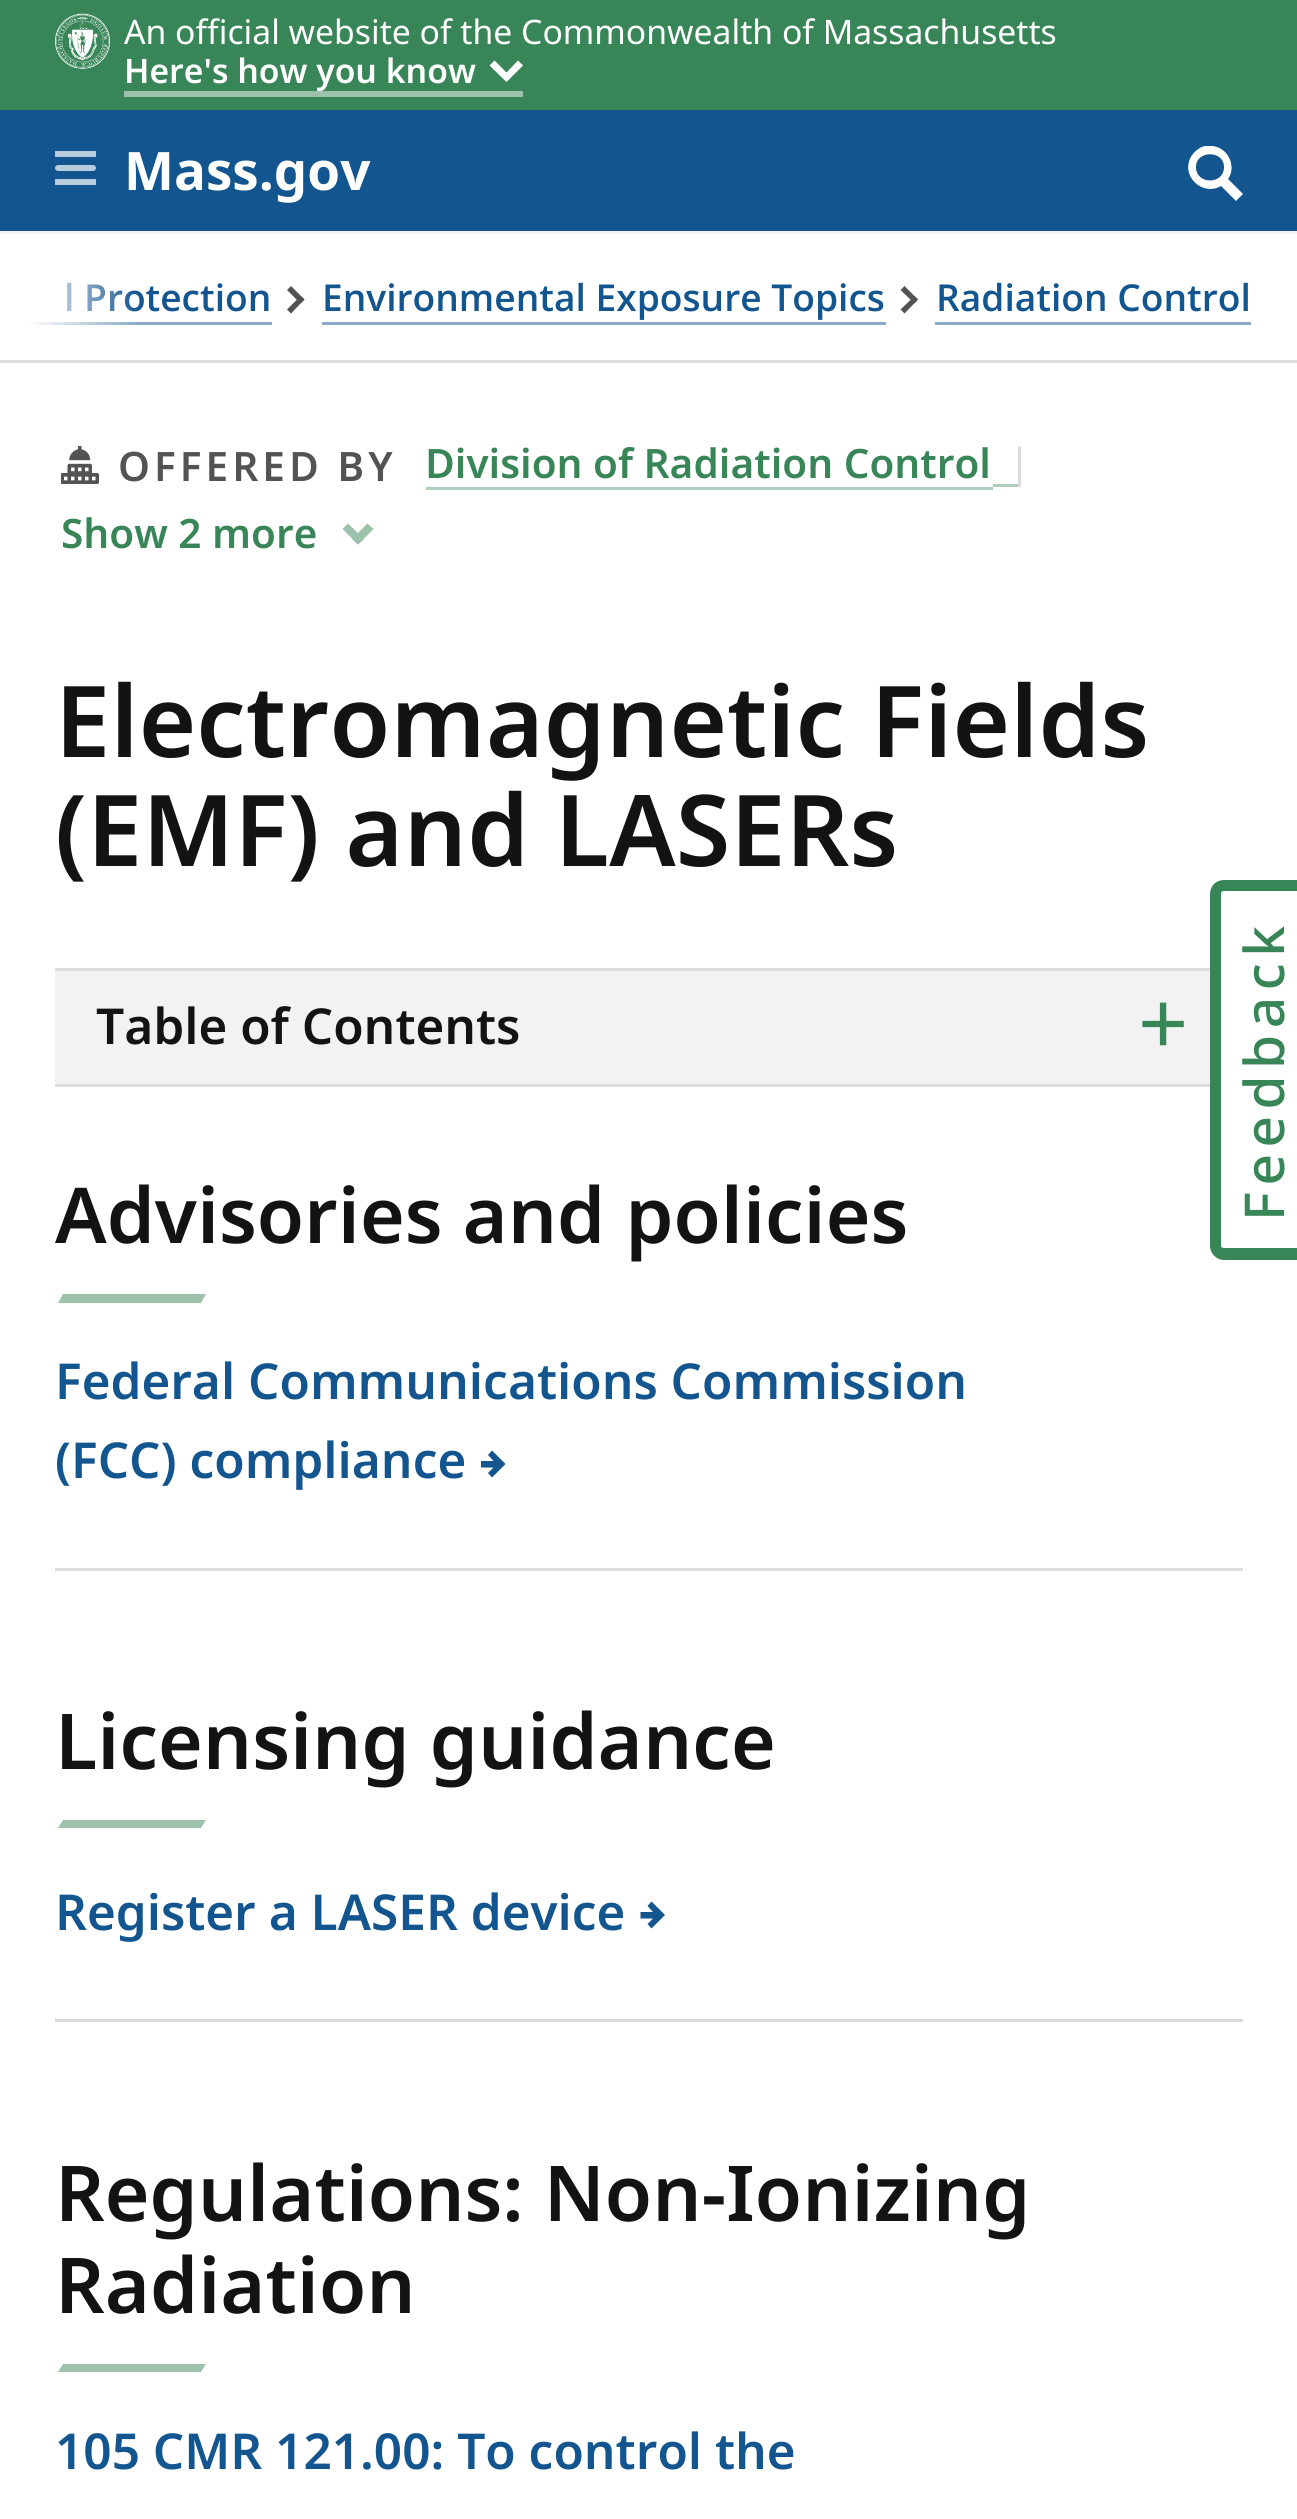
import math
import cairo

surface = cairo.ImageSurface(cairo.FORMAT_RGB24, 1297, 2519)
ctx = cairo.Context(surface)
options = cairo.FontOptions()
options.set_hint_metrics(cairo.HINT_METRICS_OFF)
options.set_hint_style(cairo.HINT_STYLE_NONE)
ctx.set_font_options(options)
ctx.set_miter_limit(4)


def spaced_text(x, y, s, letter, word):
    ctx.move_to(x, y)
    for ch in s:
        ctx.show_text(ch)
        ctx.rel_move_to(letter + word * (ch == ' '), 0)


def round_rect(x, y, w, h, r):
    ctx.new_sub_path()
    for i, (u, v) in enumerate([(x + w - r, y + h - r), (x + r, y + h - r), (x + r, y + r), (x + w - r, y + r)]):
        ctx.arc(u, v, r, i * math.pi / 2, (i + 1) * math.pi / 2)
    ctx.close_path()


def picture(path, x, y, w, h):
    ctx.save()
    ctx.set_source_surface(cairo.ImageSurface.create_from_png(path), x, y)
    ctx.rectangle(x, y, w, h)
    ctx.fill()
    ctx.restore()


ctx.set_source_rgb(1, 1, 1)
ctx.paint()
ctx.set_source_rgb(0.22, 0.522, 0.341)
ctx.rectangle(0, 0, 1297, 110)
ctx.fill()
picture("img1.png", 55, 13, 55, 56)
ctx.select_font_face("Noto Sans")
ctx.set_font_size(33.7)
ctx.set_source_rgb(1, 1, 1)
ctx.move_to(124, 44)
ctx.show_text("An official website of the Commonwealth of Massachusetts")
ctx.set_source_rgb(0.612, 0.761, 0.671)
ctx.rectangle(124, 91, 399, 6)
ctx.fill()
ctx.select_font_face("Noto Sans SemiBold")
ctx.set_source_rgb(1, 1, 1)
ctx.move_to(124, 83)
ctx.show_text("Here's how you know")
ctx.new_path()
ctx.move_to(506.5, 82)
ctx.line_to(489.5, 65.5)
ctx.line_to(494.5, 60.5)
ctx.line_to(506.5, 72.5)
ctx.line_to(518, 60.5)
ctx.line_to(523, 65.5)
ctx.line_to(506.5, 82)
ctx.fill()
ctx.set_source_rgb(0.949, 0.949, 0.949)
ctx.rectangle(0, 231, 1297, 3)
ctx.fill()
ctx.set_source_rgb(0.078, 0.333, 0.561)
ctx.rectangle(0, 110, 1297, 121)
ctx.fill()
ctx.set_source_rgb(0.725, 0.8, 0.867)
round_rect(55, 165, 41, 6, 3)
ctx.fill()
ctx.rectangle(55, 151, 41, 6)
ctx.fill()
ctx.rectangle(55, 179, 41, 6)
ctx.fill()
ctx.select_font_face("Noto Sans", cairo.FONT_SLANT_NORMAL, cairo.FONT_WEIGHT_BOLD)
ctx.set_font_size(53)
ctx.set_source_rgb(1, 1, 1)
ctx.move_to(124, 190)
ctx.show_text("Mass.gov")
ctx.save()
ctx.rectangle(1188, 146, 55, 55)
ctx.clip()
ctx.new_path()
ctx.move_to(1243, 194)
ctx.line_to(1228, 179)
ctx.curve_to(1234, 171, 1232, 159, 1225, 152)
ctx.curve_to(1220, 147, 1213, 145, 1205, 146)
ctx.curve_to(1200, 147, 1195, 151, 1192, 155)
ctx.curve_to(1179, 175, 1202, 197, 1221, 186)
ctx.line_to(1236, 201)
ctx.close_path()
ctx.move_to(1196, 167)
ctx.curve_to(1196, 150, 1224, 150, 1224, 167)
ctx.curve_to(1224, 185, 1196, 185, 1196, 167)
ctx.close_path()
ctx.fill()
ctx.restore()
ctx.set_source_rgb(0.541, 0.667, 0.78)
ctx.rectangle(28, 322, 244, 3)
ctx.fill()
ctx.select_font_face("Noto Sans Medium")
ctx.set_font_size(37.1)
ctx.set_source_rgb(0.078, 0.333, 0.561)
ctx.move_to(64, 311)
ctx.show_text("l Protection")
gradient = cairo.LinearGradient(0, 282, 138, 282)
gradient.add_color_stop_rgba(0.2, 1, 1, 1, 1)
gradient.add_color_stop_rgba(1, 1, 1, 1, 0)
ctx.set_source(gradient)
ctx.rectangle(28, 282, 108, 43)
ctx.fill()
ctx.set_source_rgb(0.863, 0.863, 0.863)
ctx.rectangle(0, 360, 1297, 3)
ctx.fill()
ctx.set_source_rgb(0.325, 0.325, 0.325)
ctx.new_path()
ctx.move_to(287, 290)
ctx.line_to(291, 286)
ctx.line_to(304.5, 299.5)
ctx.line_to(300.5, 303.5)
ctx.close_path()
ctx.fill()
ctx.new_path()
ctx.move_to(287, 309.5)
ctx.line_to(300.5, 296)
ctx.line_to(304.5, 299.5)
ctx.line_to(291, 313.5)
ctx.close_path()
ctx.fill()
ctx.set_source_rgb(0.541, 0.667, 0.78)
ctx.rectangle(322, 322, 564, 3)
ctx.fill()
ctx.set_source_rgb(0.078, 0.333, 0.561)
ctx.move_to(322, 311)
ctx.show_text("Environmental Exposure Topics")
ctx.set_source_rgb(0.325, 0.325, 0.325)
ctx.new_path()
ctx.move_to(900.5, 290)
ctx.line_to(904.5, 286)
ctx.line_to(918, 299.5)
ctx.line_to(914.5, 303.5)
ctx.close_path()
ctx.fill()
ctx.new_path()
ctx.move_to(900.5, 309.5)
ctx.line_to(914.5, 296)
ctx.line_to(918, 299.5)
ctx.line_to(904.5, 313.5)
ctx.close_path()
ctx.fill()
ctx.set_source_rgb(0.541, 0.667, 0.78)
ctx.rectangle(935, 322, 316, 3)
ctx.fill()
ctx.set_source_rgb(0.078, 0.333, 0.561)
ctx.move_to(936, 311)
ctx.show_text("Radiation Control")
picture("img2.png", 61, 446, 38, 38)
ctx.select_font_face("Noto Sans SemiBold")
ctx.set_font_size(40.5)
ctx.set_source_rgb(0.325, 0.325, 0.325)
spaced_text(118, 481, "OFFERED BY", 4, 0)
ctx.set_source_rgb(0.686, 0.808, 0.737)
ctx.rectangle(993, 484, 27, 3)
ctx.fill()
ctx.rectangle(426, 487, 567, 3)
ctx.fill()
ctx.set_source_rgb(0.22, 0.522, 0.341)
ctx.move_to(425, 478)
ctx.show_text("Division of Radiation Control")
ctx.set_source_rgb(0.863, 0.863, 0.863)
ctx.rectangle(1018, 446, 3, 41)
ctx.fill()
ctx.set_source_rgb(0.22, 0.522, 0.341)
ctx.move_to(61, 548)
ctx.show_text("Show 2 more")
ctx.set_source_rgb(0.612, 0.761, 0.671)
ctx.new_path()
ctx.move_to(367.5, 523.5)
ctx.line_to(373.5, 529)
ctx.line_to(358, 544.5)
ctx.line_to(352, 539)
ctx.close_path()
ctx.fill()
ctx.new_path()
ctx.move_to(348, 523.5)
ctx.line_to(364, 539)
ctx.line_to(358, 544.5)
ctx.line_to(342.5, 529)
ctx.close_path()
ctx.fill()
ctx.set_font_size(99)
ctx.set_source_rgb(0.078, 0.078, 0.078)
ctx.move_to(55, 757)
ctx.show_text("Electromagnetic Fields")
ctx.move_to(55, 866)
ctx.show_text("(EMF) and LASERs")
ctx.set_source_rgb(0.949, 0.949, 0.949)
ctx.rectangle(55, 971, 1155, 113)
ctx.fill()
ctx.set_source_rgb(0.863, 0.863, 0.863)
ctx.rectangle(55, 968, 1155, 3)
ctx.fill()
ctx.rectangle(55, 1084, 1155, 3)
ctx.fill()
ctx.set_font_size(49.5)
ctx.set_source_rgb(0.078, 0.078, 0.078)
ctx.move_to(96, 1044)
ctx.show_text("Table of Contents")
ctx.select_font_face("Noto Sans")
ctx.set_font_size(88)
ctx.set_source_rgb(0.22, 0.522, 0.341)
ctx.move_to(1138, 1055)
ctx.show_text("+")
ctx.select_font_face("Noto Sans SemiBold")
ctx.set_font_size(77)
ctx.set_source_rgb(0.078, 0.078, 0.078)
ctx.move_to(55, 1243)
ctx.show_text("Advisories and policies")
ctx.set_source_rgb(0.612, 0.761, 0.671)
ctx.new_path()
ctx.move_to(63, 1294)
ctx.line_to(206, 1294)
ctx.line_to(201, 1303)
ctx.line_to(58, 1303)
ctx.close_path()
ctx.fill()
ctx.set_source_rgb(0.863, 0.863, 0.863)
ctx.rectangle(55, 1568, 1188, 3)
ctx.fill()
ctx.set_font_size(49.5)
ctx.set_source_rgb(0.078, 0.333, 0.561)
ctx.move_to(55, 1399)
ctx.show_text("Federal Communications Commission")
ctx.move_to(55, 1478)
ctx.show_text("(FCC) compliance")
ctx.new_path()
ctx.move_to(501, 1459.5)
ctx.line_to(505.5, 1464)
ctx.line_to(492, 1477.5)
ctx.line_to(488, 1473)
ctx.line_to(493.5, 1467.5)
ctx.line_to(481, 1467.5)
ctx.line_to(481, 1461)
ctx.line_to(493.5, 1461)
ctx.line_to(488, 1455)
ctx.line_to(492, 1450.5)
ctx.close_path()
ctx.fill()
ctx.set_font_size(77)
ctx.set_source_rgb(0.078, 0.078, 0.078)
ctx.move_to(55, 1769)
ctx.show_text("Licensing guidance")
ctx.set_source_rgb(0.612, 0.761, 0.671)
ctx.new_path()
ctx.move_to(63, 1820)
ctx.line_to(206, 1820)
ctx.line_to(201, 1828)
ctx.line_to(58, 1828)
ctx.close_path()
ctx.fill()
ctx.set_source_rgb(0.863, 0.863, 0.863)
ctx.rectangle(55, 2019, 1188, 3)
ctx.fill()
ctx.set_font_size(49.5)
ctx.set_source_rgb(0.078, 0.333, 0.561)
ctx.move_to(55, 1930)
ctx.show_text("Register a LASER device")
ctx.new_path()
ctx.move_to(660.5, 1910.5)
ctx.line_to(665, 1915)
ctx.line_to(651.5, 1928.5)
ctx.line_to(647.5, 1924)
ctx.line_to(653, 1918.5)
ctx.line_to(640.5, 1918.5)
ctx.line_to(640.5, 1912)
ctx.line_to(653, 1912)
ctx.line_to(647.5, 1906)
ctx.line_to(651.5, 1901.5)
ctx.close_path()
ctx.fill()
ctx.set_font_size(77)
ctx.set_source_rgb(0.078, 0.078, 0.078)
ctx.move_to(55, 2221)
ctx.show_text("Regulations: Non-Ionizing")
ctx.move_to(55, 2313)
ctx.show_text("Radiation")
ctx.set_source_rgb(0.612, 0.761, 0.671)
ctx.new_path()
ctx.move_to(63, 2364)
ctx.line_to(206, 2364)
ctx.line_to(201, 2372)
ctx.line_to(58, 2372)
ctx.close_path()
ctx.fill()
ctx.set_font_size(49.5)
ctx.set_source_rgb(0.078, 0.333, 0.561)
ctx.move_to(55, 2469)
ctx.show_text("105 CMR 121.00: To control the")
ctx.set_source_rgb(0.22, 0.522, 0.341)
ctx.set_fill_rule(cairo.FILL_RULE_EVEN_ODD)
ctx.new_path()
ctx.move_to(1210, 1246)
ctx.line_to(1210, 894)
ctx.curve_to(1210, 886, 1216, 880, 1224, 880)
ctx.line_to(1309, 880)
ctx.line_to(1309, 1260)
ctx.line_to(1224, 1260)
ctx.curve_to(1216, 1260, 1210, 1253, 1210, 1246)
ctx.close_path()
ctx.move_to(1221, 1246)
ctx.line_to(1221, 894)
ctx.curve_to(1221, 892, 1222, 891, 1224, 891)
ctx.line_to(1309, 891)
ctx.line_to(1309, 1248)
ctx.line_to(1224, 1248)
ctx.curve_to(1222, 1248, 1221, 1247, 1221, 1246)
ctx.close_path()
ctx.fill()
ctx.select_font_face("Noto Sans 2 Medium")
ctx.set_font_size(55)
ctx.save()
ctx.translate(1284, 1221)
ctx.rotate(-90 * math.pi / 180)
spaced_text(0, 0, "Feedback", 6.5, 0)
ctx.restore()
surface.write_to_png("page.png")
